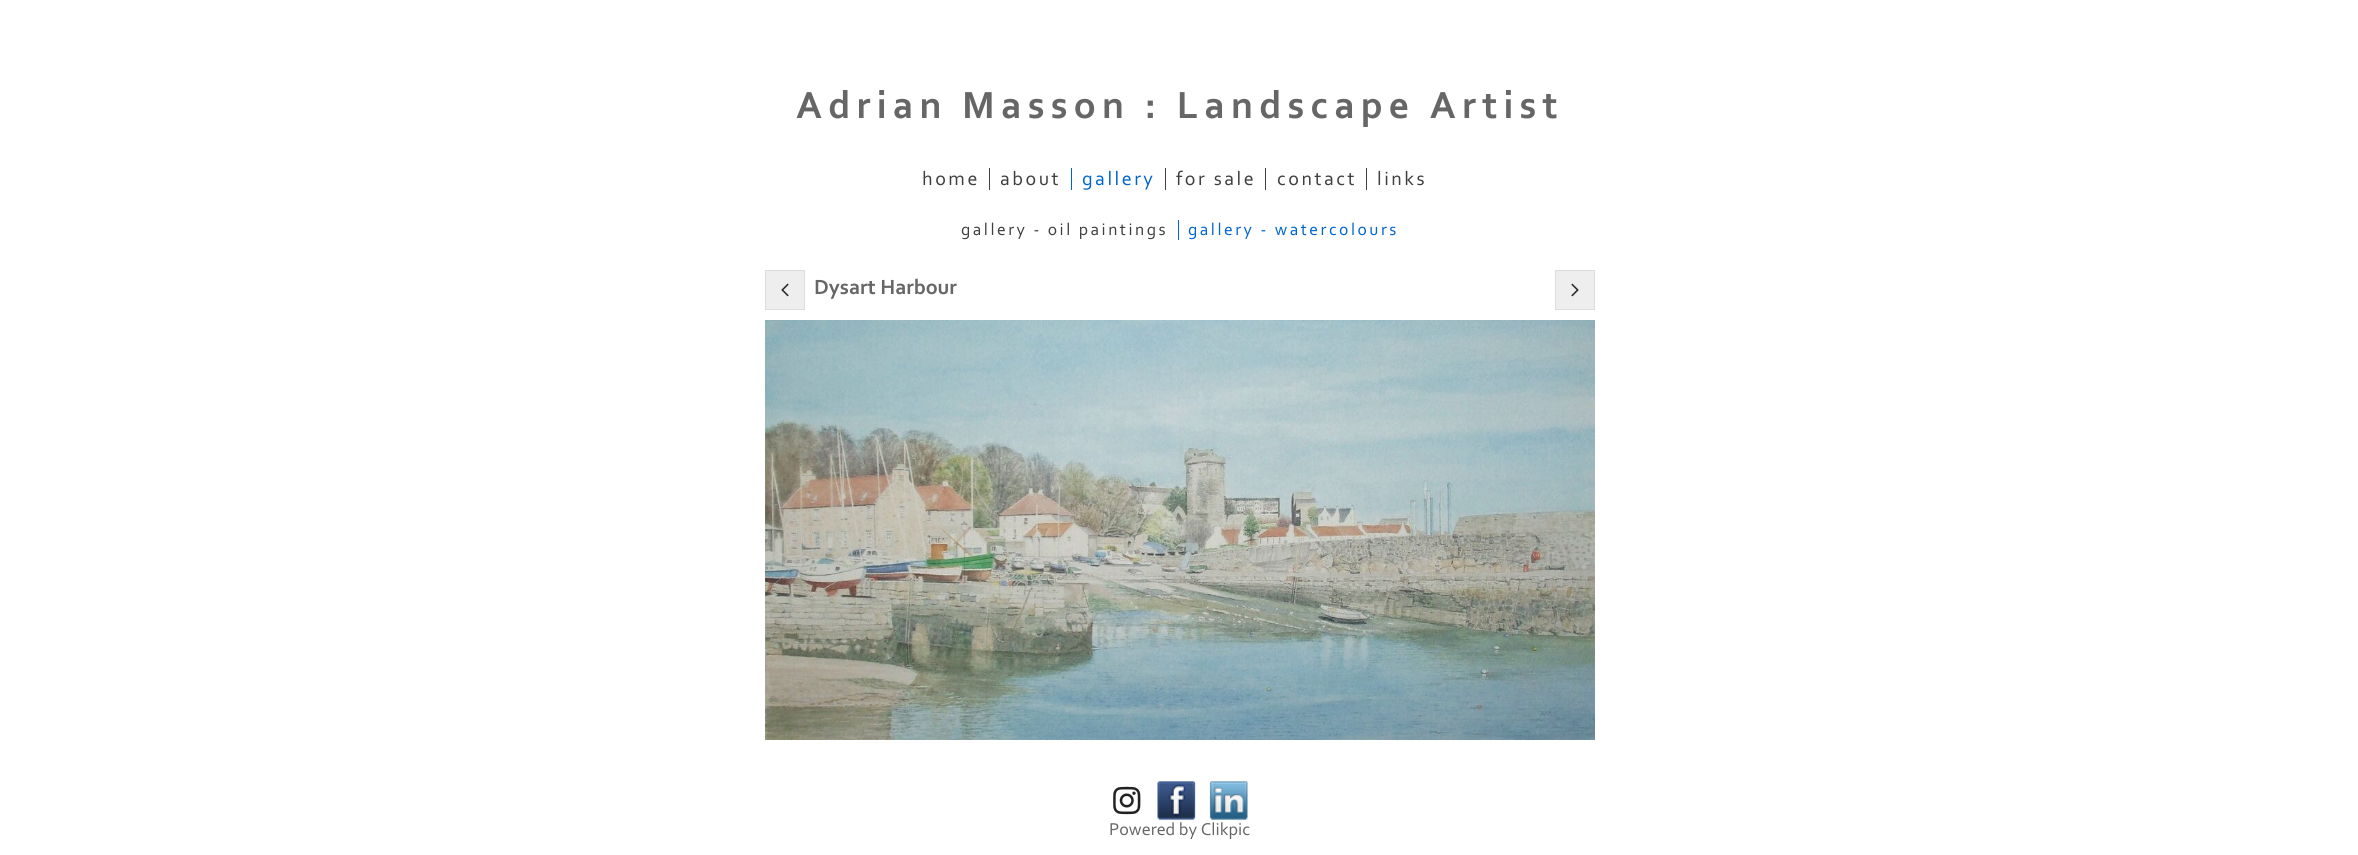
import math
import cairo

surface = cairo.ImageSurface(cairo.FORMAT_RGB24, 2358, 855)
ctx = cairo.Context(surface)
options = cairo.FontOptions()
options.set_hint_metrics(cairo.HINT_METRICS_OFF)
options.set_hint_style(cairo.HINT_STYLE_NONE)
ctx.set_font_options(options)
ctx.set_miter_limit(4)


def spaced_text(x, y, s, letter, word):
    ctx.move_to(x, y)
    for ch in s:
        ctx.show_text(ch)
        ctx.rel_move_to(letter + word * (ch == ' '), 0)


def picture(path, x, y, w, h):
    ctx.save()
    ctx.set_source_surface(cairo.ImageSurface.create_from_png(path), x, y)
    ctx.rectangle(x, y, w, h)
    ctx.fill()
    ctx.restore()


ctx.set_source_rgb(1, 1, 1)
ctx.paint()
ctx.select_font_face("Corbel", cairo.FONT_SLANT_NORMAL, cairo.FONT_WEIGHT_BOLD)
ctx.set_font_size(39.6)
ctx.set_source_rgb(0.4, 0.4, 0.4)
spaced_text(796, 118, "Adrian Masson : Landscape Artist", 6.25, 0)
ctx.select_font_face("Corbel")
ctx.set_font_size(20)
ctx.set_source_rgb(0.247, 0.247, 0.247)
spaced_text(922, 185, "home", 2.5, 0)
ctx.rectangle(989, 168, 1, 22)
ctx.fill()
spaced_text(1000, 185, "about", 2.5, 0)
ctx.set_source_rgb(0, 0.396, 0.812)
ctx.rectangle(1071, 168, 1, 22)
ctx.fill()
spaced_text(1082, 185, "gallery", 2.5, 0)
ctx.set_source_rgb(0.247, 0.247, 0.247)
ctx.rectangle(1165, 168, 1, 22)
ctx.fill()
spaced_text(1176, 185, "for sale", 2.5, 0)
ctx.rectangle(1265, 168, 1, 22)
ctx.fill()
spaced_text(1277, 185, "contact", 2.5, 0)
ctx.rectangle(1366, 168, 1, 22)
ctx.fill()
spaced_text(1377, 185, "links", 2.5, 0)
ctx.set_font_size(17.5)
spaced_text(961, 235, "gallery - oil paintings", 2.5, 0)
ctx.set_source_rgb(0, 0.396, 0.812)
ctx.rectangle(1178, 220, 1, 20)
ctx.fill()
spaced_text(1188, 235, "gallery - watercolours", 2.5, 0)
ctx.set_source_rgb(0.933, 0.933, 0.933)
ctx.rectangle(765.5, 270.5, 39, 39)
ctx.fill_preserve()
ctx.set_source_rgb(0.867, 0.867, 0.867)
ctx.set_line_width(1)
ctx.stroke()
picture("img1.png", 781, 283, 8, 14)
ctx.set_source_rgb(0.933, 0.933, 0.933)
ctx.rectangle(1555.5, 270.5, 39, 39)
ctx.fill_preserve()
ctx.set_source_rgb(0.867, 0.867, 0.867)
ctx.stroke()
picture("img2.png", 1571, 283, 8, 14)
ctx.select_font_face("Corbel", cairo.FONT_SLANT_NORMAL, cairo.FONT_WEIGHT_BOLD)
ctx.set_font_size(21.5)
ctx.set_source_rgb(0.4, 0.4, 0.4)
ctx.move_to(814, 294)
ctx.show_text("Dysart Harbour")
picture("img3.png", 765, 320, 830, 420)
picture("img4.png", 1113, 786, 28, 29)
picture("img5.png", 1157, 781, 39, 39)
picture("img6.png", 1209, 781, 39, 39)
ctx.select_font_face("Corbel")
ctx.set_font_size(18)
ctx.move_to(1109, 835)
ctx.show_text("Powered by Clikpic")
surface.write_to_png("page.png")
